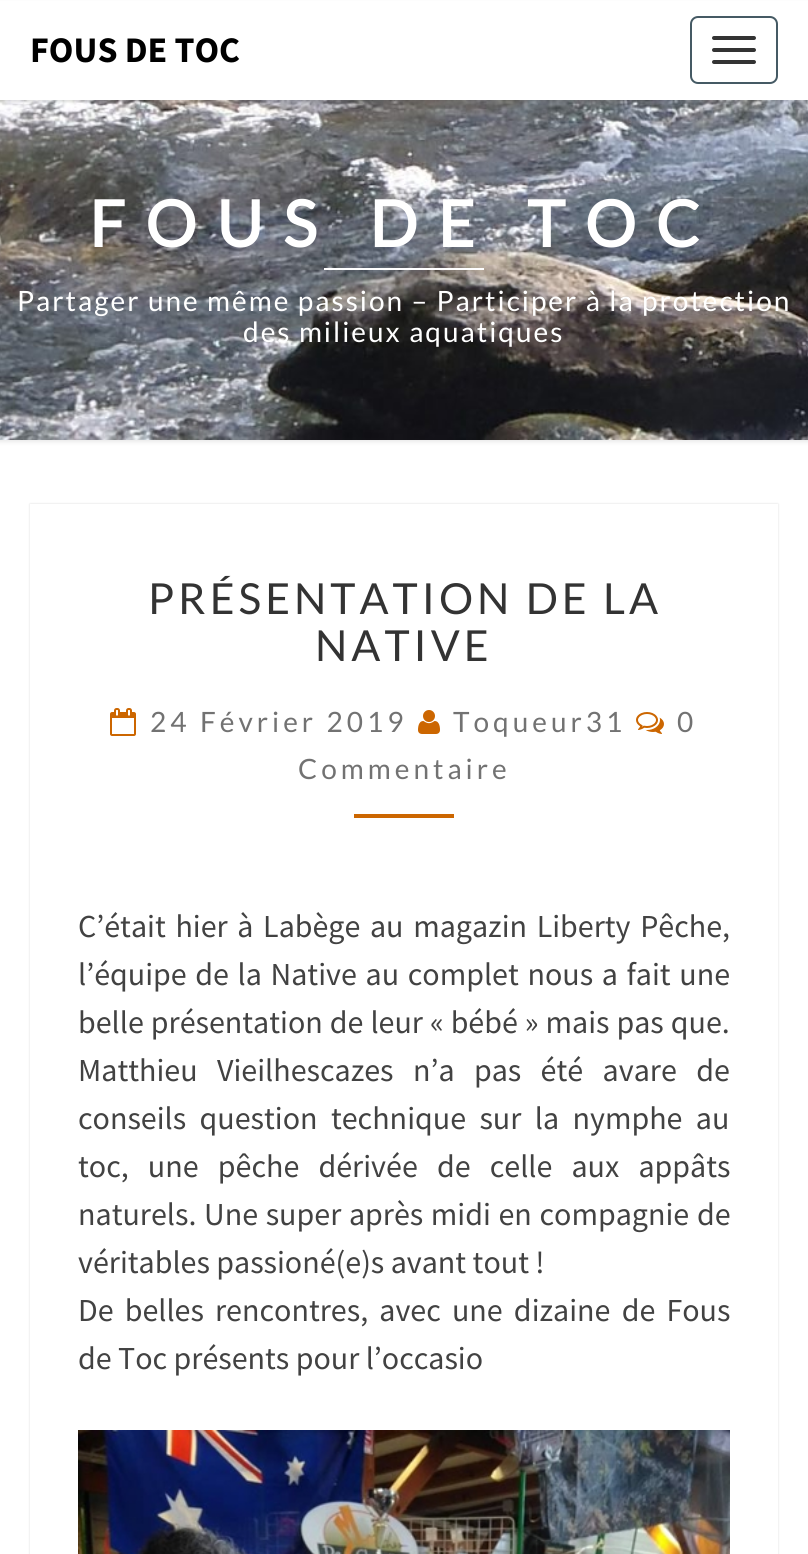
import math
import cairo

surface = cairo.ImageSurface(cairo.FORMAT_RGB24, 808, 1554)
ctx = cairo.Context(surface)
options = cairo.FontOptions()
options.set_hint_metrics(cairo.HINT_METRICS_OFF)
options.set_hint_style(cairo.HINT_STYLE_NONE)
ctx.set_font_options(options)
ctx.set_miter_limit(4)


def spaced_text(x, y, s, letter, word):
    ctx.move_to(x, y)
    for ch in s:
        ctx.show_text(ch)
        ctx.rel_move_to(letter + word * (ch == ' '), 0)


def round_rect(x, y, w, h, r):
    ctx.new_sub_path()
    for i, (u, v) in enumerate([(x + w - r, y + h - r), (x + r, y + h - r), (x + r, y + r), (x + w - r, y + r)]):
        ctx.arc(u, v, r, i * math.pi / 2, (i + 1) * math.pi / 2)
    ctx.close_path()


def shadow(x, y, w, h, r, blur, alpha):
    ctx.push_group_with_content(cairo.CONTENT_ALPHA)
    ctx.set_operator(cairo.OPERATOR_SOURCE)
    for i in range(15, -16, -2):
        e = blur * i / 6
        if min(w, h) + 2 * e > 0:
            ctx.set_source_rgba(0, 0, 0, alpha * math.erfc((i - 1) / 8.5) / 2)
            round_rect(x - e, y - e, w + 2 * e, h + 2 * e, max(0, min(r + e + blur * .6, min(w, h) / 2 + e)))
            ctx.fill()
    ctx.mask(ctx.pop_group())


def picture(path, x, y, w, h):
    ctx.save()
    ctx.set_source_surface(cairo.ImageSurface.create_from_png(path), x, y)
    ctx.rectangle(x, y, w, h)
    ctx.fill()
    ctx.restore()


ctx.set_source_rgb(1, 1, 1)
ctx.paint()
ctx.set_source_rgb(0.714, 0.714, 0.714)
shadow(-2, 98, 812, 344, 0, 2, 0.3)
picture("img1.png", 0, 100, 808, 340)
ctx.set_source_rgb(0.392, 0.392, 0.392)
shadow(0, 2, 808, 100, 0, 1, 0.2)
ctx.set_source_rgb(1, 1, 1)
ctx.rectangle(0, 1, 808, 99)
ctx.fill()
ctx.select_font_face("Source Sans Pro", cairo.FONT_SLANT_NORMAL, cairo.FONT_WEIGHT_BOLD)
ctx.set_font_size(36)
ctx.set_source_rgb(0, 0, 0)
ctx.move_to(30, 62)
ctx.show_text("FOUS DE TOC")
round_rect(691, 17, 86, 66, 7)
ctx.set_source_rgb(0.271, 0.353, 0.392)
ctx.stroke()
ctx.set_source_rgb(0.2, 0.2, 0.2)
round_rect(712, 36, 44, 4, 2)
ctx.fill()
round_rect(712, 48, 44, 4, 2)
ctx.fill()
round_rect(712, 60, 44, 4, 2)
ctx.fill()
ctx.select_font_face("Lato", cairo.FONT_SLANT_NORMAL, cairo.FONT_WEIGHT_BOLD)
ctx.set_font_size(64)
ctx.set_source_rgb(1, 1, 1)
spaced_text(89, 247, "FOUS DE TOC", 20, 0)
ctx.rectangle(324, 268, 160, 2)
ctx.fill()
ctx.select_font_face("Lato")
ctx.set_font_size(28)
spaced_text(17, 311, "Partager une même passion – Participer à la protection", 2, 0)
spaced_text(243, 342, "des milieux aquatiques", 2, 0)
ctx.save()
ctx.set_fill_rule(cairo.FILL_RULE_EVEN_ODD)
ctx.new_path()
ctx.move_to(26, 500)
ctx.line_to(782, 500)
ctx.line_to(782, 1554)
ctx.line_to(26, 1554)
ctx.close_path()
ctx.move_to(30, 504)
ctx.line_to(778, 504)
ctx.line_to(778, 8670)
ctx.line_to(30, 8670)
ctx.close_path()
ctx.clip()
ctx.set_source_rgb(0, 0, 0)
shadow(30, 504, 748, 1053, 0, 1, 0.15)
ctx.restore()
ctx.set_font_size(42.75)
ctx.set_source_rgb(0.2, 0.2, 0.2)
spaced_text(148, 614, "PRÉSENTATION DE LA", 4, 0)
spaced_text(315, 661, "NATIVE", 4, 0)
picture("img2.png", 110, 708, 26, 28)
ctx.set_font_size(28)
ctx.set_source_rgb(0.447, 0.447, 0.447)
spaced_text(150, 732, "24 Février 2019", 4, 0)
picture("img3.png", 418, 710, 22, 24)
spaced_text(453, 732, "Toqueur31", 4, 0)
picture("img4.png", 636, 712, 28, 22)
spaced_text(677, 732, "0", 4, 0)
spaced_text(298, 779, "Commentaire", 4, 0)
ctx.set_source_rgb(0.8, 0.4, 0)
ctx.rectangle(354, 814, 100, 4)
ctx.fill()
ctx.select_font_face("Source Sans Pro")
ctx.set_font_size(32)
ctx.set_source_rgb(0.259, 0.259, 0.259)
spaced_text(78, 937, "C’était hier à Labège au magazin Liberty Pêche,", 0, 3.25)
spaced_text(78, 985, "l’équipe de la Native au complet nous a fait une", 0, 2.25)
spaced_text(78, 1033, "belle présentation de leur « bébé » mais pas que.", 0, 0.6)
spaced_text(78, 1081, "Matthieu Vieilhescazes n’a pas été avare de", 0, 13)
spaced_text(78, 1129, "conseils question technique sur la nymphe au", 0, 7)
spaced_text(78, 1177, "toc, une pêche dérivée de celle aux appâts", 0, 12.75)
spaced_text(78, 1225, "naturels. Une super après midi en compagnie de", 0, 1.25)
ctx.move_to(78, 1273)
ctx.show_text("véritables passioné(e)s avant tout !")
spaced_text(78, 1321, "De belles rencontres, avec une dizaine de Fous", 0, 4.75)
ctx.move_to(78, 1369)
ctx.show_text("de Toc présents pour l’occasio")
picture("img5.png", 78, 1430, 652, 124)
surface.write_to_png("page.png")
